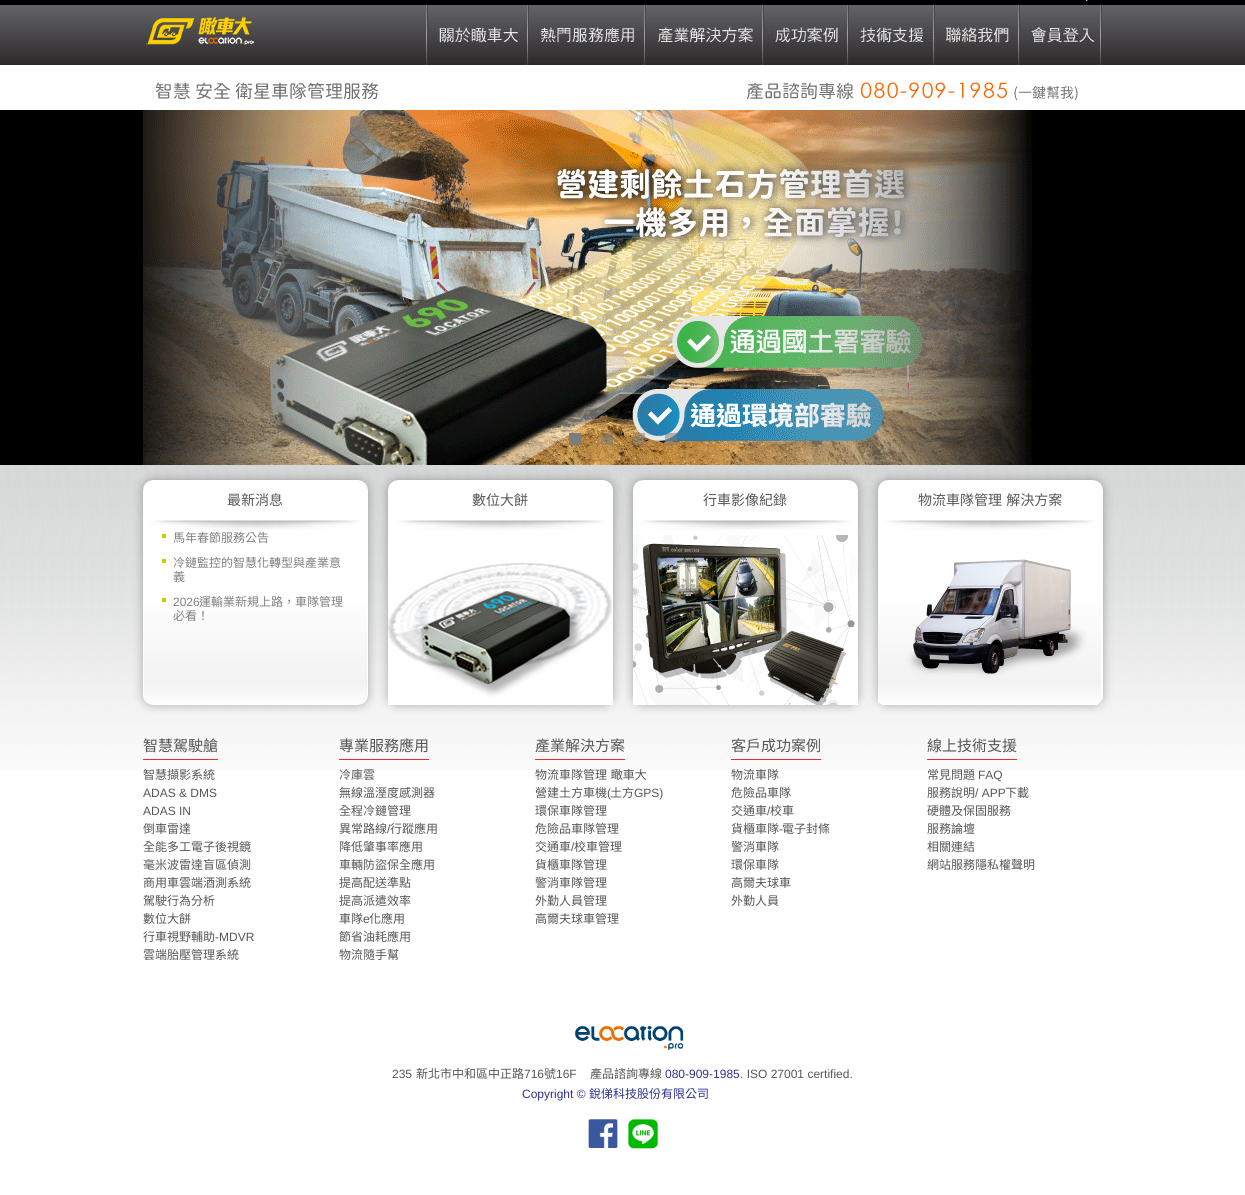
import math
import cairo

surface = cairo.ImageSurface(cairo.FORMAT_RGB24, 1245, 1195)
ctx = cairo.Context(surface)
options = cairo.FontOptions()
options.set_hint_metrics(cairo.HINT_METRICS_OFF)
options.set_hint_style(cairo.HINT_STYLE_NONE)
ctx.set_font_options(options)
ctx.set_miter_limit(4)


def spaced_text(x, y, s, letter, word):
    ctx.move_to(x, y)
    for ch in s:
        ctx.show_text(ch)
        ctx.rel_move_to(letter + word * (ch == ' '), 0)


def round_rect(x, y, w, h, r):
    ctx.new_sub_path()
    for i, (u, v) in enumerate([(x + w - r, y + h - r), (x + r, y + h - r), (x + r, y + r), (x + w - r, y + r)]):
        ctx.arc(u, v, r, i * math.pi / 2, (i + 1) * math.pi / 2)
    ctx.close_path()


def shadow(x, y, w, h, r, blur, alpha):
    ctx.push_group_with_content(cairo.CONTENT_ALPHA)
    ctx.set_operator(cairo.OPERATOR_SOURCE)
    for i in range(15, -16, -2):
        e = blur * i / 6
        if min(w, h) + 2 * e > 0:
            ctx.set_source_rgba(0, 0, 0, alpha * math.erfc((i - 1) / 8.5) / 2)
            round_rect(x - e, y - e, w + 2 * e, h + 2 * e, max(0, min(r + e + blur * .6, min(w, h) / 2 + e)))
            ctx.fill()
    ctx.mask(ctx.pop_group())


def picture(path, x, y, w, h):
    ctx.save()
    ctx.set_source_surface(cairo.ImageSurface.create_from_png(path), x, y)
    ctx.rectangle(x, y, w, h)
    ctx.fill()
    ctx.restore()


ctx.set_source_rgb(1, 1, 1)
ctx.paint()
ctx.set_source_rgb(0, 0, 0)
ctx.rectangle(0, 0, 1245, 5)
ctx.fill()
picture("img1.png", 0, 5, 1245, 60)
picture("img2.png", 1086, 0, 2, 1)
picture("img3.png", 146, 17, 108, 28)
picture("img4.png", 426, 5, 99, 60)
picture("img5.png", 527, 5, 117, 60)
picture("img6.png", 644, 5, 110, 60)
picture("img7.png", 762, 5, 83, 60)
picture("img8.png", 847, 5, 86, 60)
picture("img9.png", 933, 5, 77, 60)
picture("img10.png", 1018, 5, 84, 60)
picture("img11.png", 155, 82, 923, 19)
picture("img12.png", 0, 465, 1245, 306)
ctx.rectangle(0, 110, 1245, 355)
ctx.fill()
picture("img13.png", 143, 110, 890, 355)
ctx.set_source_rgb(0.49, 0.49, 0.49)
ctx.rectangle(569, 433, 12, 12)
ctx.fill()
ctx.set_source_rgba(0.49, 0.49, 0.49, 0.5)
ctx.rectangle(601, 433, 12, 12)
ctx.fill()
ctx.rectangle(633, 433, 12, 12)
ctx.fill()
ctx.rectangle(665, 433, 12, 12)
ctx.fill()
ctx.set_source_rgb(0, 0, 0)
shadow(143, 480, 225, 225, 10, 5, 0.3)
picture("img14.png", 143, 480, 225, 225)
ctx.select_font_face("Noto Sans CJK TC")
ctx.set_font_size(14)
ctx.set_source_rgb(0.337, 0.337, 0.337)
ctx.move_to(227, 505)
ctx.show_text("最新消息")
ctx.set_source_rgb(0.8, 0.8, 0)
ctx.rectangle(162, 534, 4, 4)
ctx.fill()
ctx.set_font_size(12)
ctx.set_source_rgb(0.502, 0.502, 0.502)
ctx.move_to(173, 542)
ctx.show_text("馬年春節服務公告")
ctx.set_source_rgb(0.8, 0.8, 0)
ctx.rectangle(162, 559, 4, 4)
ctx.fill()
ctx.set_source_rgb(0.502, 0.502, 0.502)
ctx.move_to(173, 567)
ctx.show_text("冷鏈監控的智慧化轉型與產業意")
ctx.move_to(173, 581)
ctx.show_text("義")
ctx.set_source_rgb(0.8, 0.8, 0)
ctx.rectangle(162, 598, 4, 4)
ctx.fill()
ctx.select_font_face("Liberation Sans")
ctx.set_source_rgb(0.502, 0.502, 0.502)
ctx.move_to(173, 606)
ctx.show_text("2026")
ctx.select_font_face("Noto Sans CJK TC")
ctx.move_to(199, 606)
ctx.show_text("運輸業新規上路，車隊管理")
ctx.move_to(173, 620)
ctx.show_text("必看！")
ctx.set_source_rgb(0, 0, 0)
shadow(388, 480, 225, 225, 10, 5, 0.3)
picture("img15.png", 388, 480, 225, 82)
ctx.set_font_size(14)
ctx.set_source_rgb(0.337, 0.337, 0.337)
ctx.move_to(472, 505)
ctx.show_text("數位大餅")
picture("img16.png", 388, 562, 225, 143)
ctx.set_source_rgb(0, 0, 0)
shadow(633, 480, 225, 225, 10, 5, 0.3)
picture("img17.png", 633, 480, 225, 55)
ctx.set_source_rgb(0.337, 0.337, 0.337)
ctx.move_to(703, 505)
ctx.show_text("行車影像紀錄")
picture("img18.png", 633, 535, 225, 170)
ctx.set_source_rgb(0, 0, 0)
shadow(878, 480, 225, 225, 10, 5, 0.3)
picture("img19.png", 878, 480, 225, 224)
ctx.set_source_rgb(0.337, 0.337, 0.337)
spaced_text(918, 505, "物流車隊管理 解決方案", 0, 1)
picture("img20.png", 878, 559, 225, 146)
ctx.set_font_size(15)
ctx.move_to(143, 751)
ctx.show_text("智慧駕駛艙")
ctx.set_source_rgb(0.929, 0.165, 0.18)
ctx.rectangle(143, 759, 75, 1)
ctx.fill()
ctx.set_font_size(12)
ctx.set_source_rgb(0.337, 0.337, 0.337)
ctx.move_to(143, 779)
ctx.show_text("智慧擷影系統")
ctx.select_font_face("Liberation Sans")
ctx.move_to(143, 797)
ctx.show_text("ADAS & DMS")
ctx.move_to(143, 815)
ctx.show_text("ADAS IN")
ctx.select_font_face("Noto Sans CJK TC")
ctx.move_to(143, 833)
ctx.show_text("倒車雷達")
ctx.move_to(143, 851)
ctx.show_text("全能多工電子後視鏡")
ctx.move_to(143, 869)
ctx.show_text("毫米波雷達盲區偵測")
ctx.move_to(143, 887)
ctx.show_text("商用車雲端酒測系統")
ctx.move_to(143, 905)
ctx.show_text("駕駛行為分析")
ctx.move_to(143, 923)
ctx.show_text("數位大餅")
ctx.move_to(143, 941)
ctx.show_text("行車視野輔助")
ctx.select_font_face("Liberation Sans")
ctx.move_to(215, 941)
ctx.show_text("-MDVR")
ctx.select_font_face("Noto Sans CJK TC")
ctx.move_to(143, 959)
ctx.show_text("雲端胎壓管理系統")
ctx.set_font_size(15)
ctx.move_to(339, 751)
ctx.show_text("專業服務應用")
ctx.set_source_rgb(0.929, 0.165, 0.18)
ctx.rectangle(339, 759, 90, 1)
ctx.fill()
ctx.set_font_size(12)
ctx.set_source_rgb(0.337, 0.337, 0.337)
ctx.move_to(339, 779)
ctx.show_text("冷庫雲")
ctx.move_to(339, 797)
ctx.show_text("無線溫溼度感測器")
ctx.move_to(339, 815)
ctx.show_text("全程冷鏈管理")
ctx.move_to(339, 833)
ctx.show_text("異常路線")
ctx.select_font_face("Liberation Sans")
ctx.move_to(387, 833)
ctx.show_text("/")
ctx.select_font_face("Noto Sans CJK TC")
ctx.move_to(390, 833)
ctx.show_text("行蹤應用")
ctx.move_to(339, 851)
ctx.show_text("降低肇事率應用")
ctx.move_to(339, 869)
ctx.show_text("車輛防盜保全應用")
ctx.move_to(339, 887)
ctx.show_text("提高配送準點")
ctx.move_to(339, 905)
ctx.show_text("提高派遣效率")
ctx.move_to(339, 923)
ctx.show_text("車隊")
ctx.select_font_face("Liberation Sans")
ctx.move_to(363, 923)
ctx.show_text("e")
ctx.select_font_face("Noto Sans CJK TC")
ctx.move_to(369, 923)
ctx.show_text("化應用")
ctx.move_to(339, 941)
ctx.show_text("節省油耗應用")
ctx.move_to(339, 959)
ctx.show_text("物流隨手幫")
ctx.set_font_size(15)
ctx.move_to(535, 751)
ctx.show_text("產業解決方案")
ctx.set_source_rgb(0.929, 0.165, 0.18)
ctx.rectangle(535, 759, 90, 1)
ctx.fill()
ctx.set_font_size(12)
ctx.set_source_rgb(0.337, 0.337, 0.337)
spaced_text(535, 779, "物流車隊管理 瞰車大", 0, 1)
ctx.move_to(535, 797)
ctx.show_text("營建土方車機")
ctx.select_font_face("Liberation Sans")
ctx.move_to(607, 797)
ctx.show_text("(")
ctx.select_font_face("Noto Sans CJK TC")
ctx.move_to(610, 797)
ctx.show_text("土方")
ctx.select_font_face("Liberation Sans")
ctx.move_to(634, 797)
ctx.show_text("GPS)")
ctx.select_font_face("Noto Sans CJK TC")
ctx.move_to(535, 815)
ctx.show_text("環保車隊管理")
ctx.move_to(535, 833)
ctx.show_text("危險品車隊管理")
ctx.move_to(535, 851)
ctx.show_text("交通車")
ctx.select_font_face("Liberation Sans")
ctx.move_to(571, 851)
ctx.show_text("/")
ctx.select_font_face("Noto Sans CJK TC")
ctx.move_to(574, 851)
ctx.show_text("校車管理")
ctx.move_to(535, 869)
ctx.show_text("貨櫃車隊管理")
ctx.move_to(535, 887)
ctx.show_text("警消車隊管理")
ctx.move_to(535, 905)
ctx.show_text("外勤人員管理")
ctx.move_to(535, 923)
ctx.show_text("高爾夫球車管理")
ctx.set_font_size(15)
ctx.move_to(731, 751)
ctx.show_text("客戶成功案例")
ctx.set_source_rgb(0.929, 0.165, 0.18)
ctx.rectangle(731, 759, 90, 1)
ctx.fill()
ctx.set_font_size(12)
ctx.set_source_rgb(0.337, 0.337, 0.337)
ctx.move_to(731, 779)
ctx.show_text("物流車隊")
ctx.move_to(731, 797)
ctx.show_text("危險品車隊")
ctx.move_to(731, 815)
ctx.show_text("交通車")
ctx.select_font_face("Liberation Sans")
ctx.move_to(767, 815)
ctx.show_text("/")
ctx.select_font_face("Noto Sans CJK TC")
ctx.move_to(770, 815)
ctx.show_text("校車")
ctx.move_to(731, 833)
ctx.show_text("貨櫃車隊")
ctx.select_font_face("Liberation Sans")
ctx.move_to(779, 833)
ctx.show_text("-")
ctx.select_font_face("Noto Sans CJK TC")
ctx.move_to(782, 833)
ctx.show_text("電子封條")
ctx.move_to(731, 851)
ctx.show_text("警消車隊")
ctx.move_to(731, 869)
ctx.show_text("環保車隊")
ctx.move_to(731, 887)
ctx.show_text("高爾夫球車")
ctx.move_to(731, 905)
ctx.show_text("外勤人員")
ctx.set_font_size(15)
ctx.move_to(927, 751)
ctx.show_text("線上技術支援")
ctx.set_source_rgb(0.929, 0.165, 0.18)
ctx.rectangle(927, 759, 90, 1)
ctx.fill()
ctx.set_font_size(12)
ctx.set_source_rgb(0.337, 0.337, 0.337)
ctx.move_to(927, 779)
ctx.show_text("常見問題")
ctx.select_font_face("Liberation Sans")
ctx.move_to(978, 779)
ctx.show_text("FAQ")
ctx.select_font_face("Noto Sans CJK TC")
ctx.move_to(927, 797)
ctx.show_text("服務說明")
ctx.select_font_face("Liberation Sans")
ctx.move_to(975, 797)
ctx.show_text("/ APP")
ctx.select_font_face("Noto Sans CJK TC")
ctx.move_to(1005, 797)
ctx.show_text("下載")
ctx.move_to(927, 815)
ctx.show_text("硬體及保固服務")
ctx.move_to(927, 833)
ctx.show_text("服務論壇")
ctx.move_to(927, 851)
ctx.show_text("相關連結")
ctx.move_to(927, 869)
ctx.show_text("網站服務隱私權聲明")
picture("img21.png", 574, 1025, 110, 25)
ctx.select_font_face("Liberation Sans")
ctx.move_to(392, 1078)
ctx.show_text("235")
ctx.select_font_face("Noto Sans CJK TC")
ctx.move_to(416, 1078)
ctx.show_text("新北市中和區中正路")
ctx.select_font_face("Liberation Sans")
ctx.move_to(524, 1078)
ctx.show_text("716")
ctx.select_font_face("Noto Sans CJK TC")
ctx.move_to(544, 1078)
ctx.show_text("號")
ctx.select_font_face("Liberation Sans")
ctx.move_to(556, 1078)
ctx.show_text("16F")
ctx.select_font_face("Noto Sans CJK TC")
ctx.move_to(590, 1078)
ctx.show_text("產品諮詢專線")
ctx.select_font_face("Liberation Sans")
ctx.set_source_rgb(0.18, 0.192, 0.573)
ctx.move_to(665, 1078)
ctx.show_text("080-909-1985")
ctx.set_source_rgb(0.337, 0.337, 0.337)
ctx.move_to(740, 1078)
ctx.show_text(". ISO 27001 certified.")
ctx.set_source_rgb(0.18, 0.192, 0.573)
ctx.move_to(522, 1098)
ctx.show_text("Copyright ©")
ctx.select_font_face("Noto Sans CJK TC")
ctx.move_to(589, 1098)
ctx.show_text("銳俤科技股份有限公司")
picture("img22.png", 588, 1119, 30, 29)
picture("img23.png", 628, 1119, 30, 30)
surface.write_to_png("page.png")
